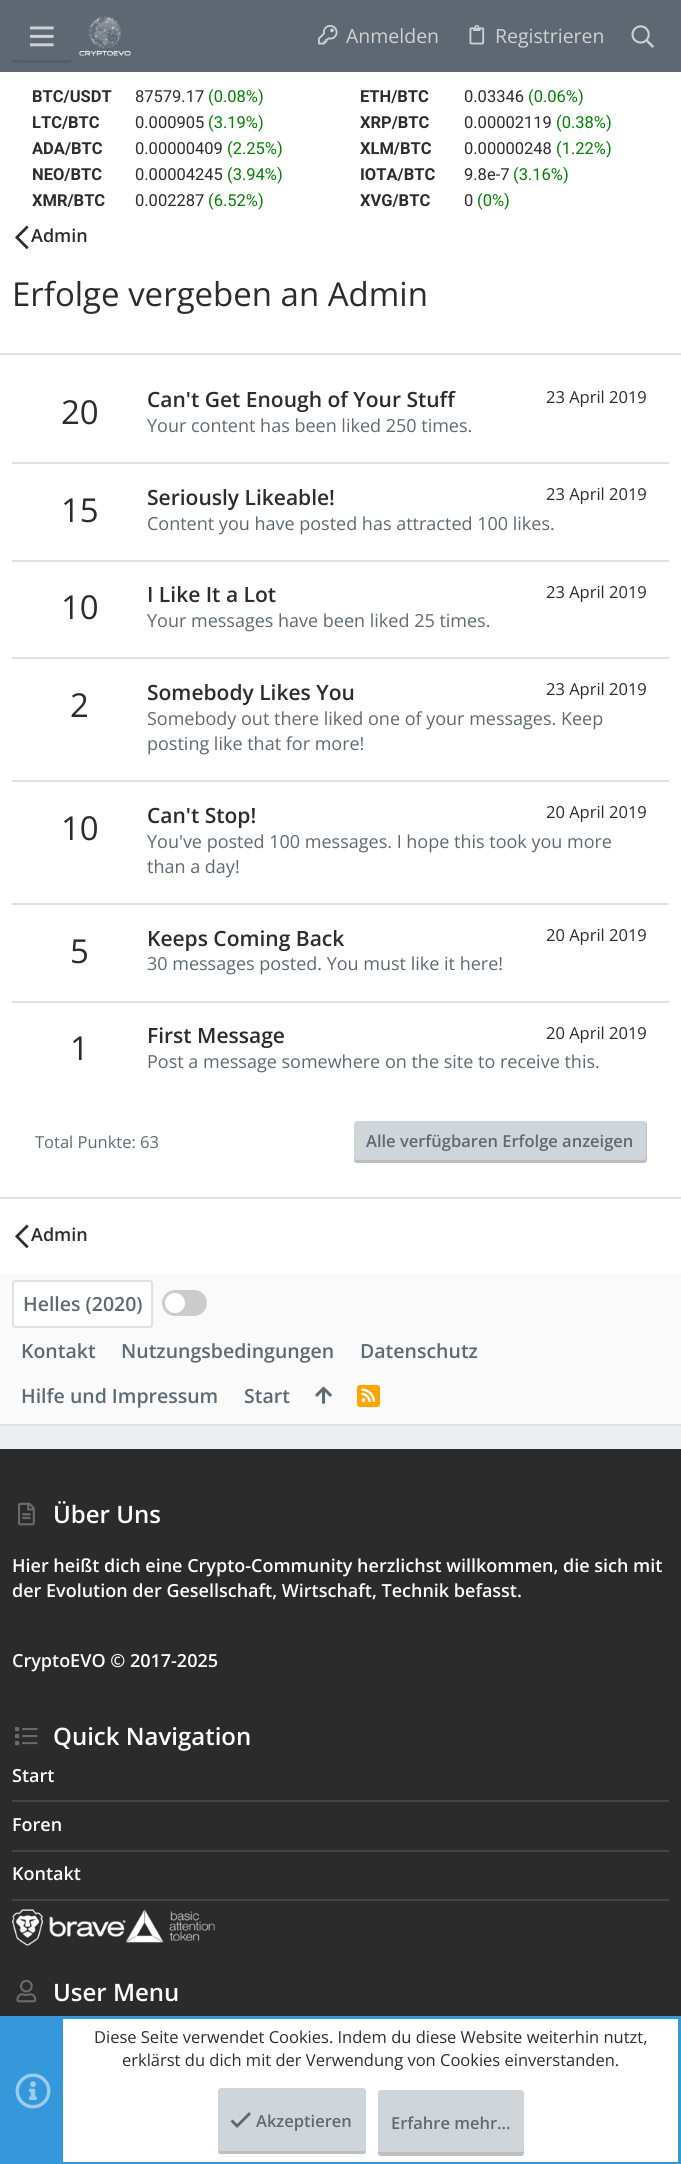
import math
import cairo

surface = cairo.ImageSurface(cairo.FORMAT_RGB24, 681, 2164)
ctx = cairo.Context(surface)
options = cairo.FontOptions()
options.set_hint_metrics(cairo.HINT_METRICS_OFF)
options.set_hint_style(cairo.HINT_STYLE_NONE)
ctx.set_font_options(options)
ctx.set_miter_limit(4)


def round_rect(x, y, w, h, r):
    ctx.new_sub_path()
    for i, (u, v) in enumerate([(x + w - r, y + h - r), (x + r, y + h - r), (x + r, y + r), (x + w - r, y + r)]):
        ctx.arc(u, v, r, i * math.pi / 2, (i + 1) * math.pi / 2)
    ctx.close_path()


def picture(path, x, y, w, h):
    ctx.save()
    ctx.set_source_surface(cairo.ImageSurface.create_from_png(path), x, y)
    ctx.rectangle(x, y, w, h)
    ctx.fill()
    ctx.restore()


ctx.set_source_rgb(0.925, 0.937, 0.945)
ctx.paint()
ctx.set_source_rgb(0.369, 0.408, 0.447)
ctx.rectangle(0, 0, 681, 72)
ctx.fill()
ctx.set_source_rgb(0.333, 0.369, 0.404)
ctx.new_path()
ctx.move_to(12, 57)
ctx.curve_to(12, 65, 15, 63, 24, 63)
ctx.line_to(60, 63)
ctx.curve_to(69, 63, 72, 65, 72, 57)
ctx.curve_to(72, 59, 71, 60, 69, 60)
ctx.line_to(15, 60)
ctx.curve_to(13, 60, 12, 59, 12, 57)
ctx.close_path()
ctx.fill()
picture("img1.png", 30, 26, 24, 21)
picture("img2.png", 79, 16, 52, 40)
picture("img3.png", 318, 25, 20, 20)
ctx.select_font_face("Open Sans")
ctx.set_font_size(19.5)
ctx.set_source_rgb(0.812, 0.824, 0.835)
ctx.move_to(346, 43)
ctx.show_text("Anmelden")
picture("img4.png", 469, 25, 16, 20)
ctx.move_to(495, 43)
ctx.show_text("Registrieren")
picture("img5.png", 631, 25, 23, 23)
ctx.set_source_rgb(1, 1, 1)
ctx.rectangle(0, 72, 681, 1202)
ctx.fill()
ctx.select_font_face("Roboto", cairo.FONT_SLANT_NORMAL, cairo.FONT_WEIGHT_BOLD)
ctx.set_font_size(16.5)
ctx.set_source_rgb(0.173, 0.173, 0.173)
ctx.move_to(32, 102)
ctx.show_text("BTC/USDT")
ctx.select_font_face("Roboto")
ctx.move_to(135, 102)
ctx.show_text("87579.17")
ctx.set_source_rgb(0, 0.502, 0)
ctx.move_to(208, 102)
ctx.show_text("(0.08%)")
ctx.select_font_face("Roboto", cairo.FONT_SLANT_NORMAL, cairo.FONT_WEIGHT_BOLD)
ctx.set_source_rgb(0.173, 0.173, 0.173)
ctx.move_to(360, 102)
ctx.show_text("ETH/BTC")
ctx.select_font_face("Roboto")
ctx.move_to(464, 102)
ctx.show_text("0.03346")
ctx.set_source_rgb(0, 0.502, 0)
ctx.move_to(528, 102)
ctx.show_text("(0.06%)")
ctx.select_font_face("Roboto", cairo.FONT_SLANT_NORMAL, cairo.FONT_WEIGHT_BOLD)
ctx.set_source_rgb(0.173, 0.173, 0.173)
ctx.move_to(32, 128)
ctx.show_text("LTC/BTC")
ctx.select_font_face("Roboto")
ctx.move_to(135, 128)
ctx.show_text("0.000905")
ctx.set_source_rgb(0, 0.502, 0)
ctx.move_to(208, 128)
ctx.show_text("(3.19%)")
ctx.select_font_face("Roboto", cairo.FONT_SLANT_NORMAL, cairo.FONT_WEIGHT_BOLD)
ctx.set_source_rgb(0.173, 0.173, 0.173)
ctx.move_to(360, 128)
ctx.show_text("XRP/BTC")
ctx.select_font_face("Roboto")
ctx.move_to(464, 128)
ctx.show_text("0.00002119")
ctx.set_source_rgb(0, 0.502, 0)
ctx.move_to(556, 128)
ctx.show_text("(0.38%)")
ctx.select_font_face("Roboto", cairo.FONT_SLANT_NORMAL, cairo.FONT_WEIGHT_BOLD)
ctx.set_source_rgb(0.173, 0.173, 0.173)
ctx.move_to(32, 154)
ctx.show_text("ADA/BTC")
ctx.select_font_face("Roboto")
ctx.move_to(135, 154)
ctx.show_text("0.00000409")
ctx.set_source_rgb(0, 0.502, 0)
ctx.move_to(227, 154)
ctx.show_text("(2.25%)")
ctx.select_font_face("Roboto", cairo.FONT_SLANT_NORMAL, cairo.FONT_WEIGHT_BOLD)
ctx.set_source_rgb(0.173, 0.173, 0.173)
ctx.move_to(360, 154)
ctx.show_text("XLM/BTC")
ctx.select_font_face("Roboto")
ctx.move_to(464, 154)
ctx.show_text("0.00000248")
ctx.set_source_rgb(0, 0.502, 0)
ctx.move_to(556, 154)
ctx.show_text("(1.22%)")
ctx.select_font_face("Roboto", cairo.FONT_SLANT_NORMAL, cairo.FONT_WEIGHT_BOLD)
ctx.set_source_rgb(0.173, 0.173, 0.173)
ctx.move_to(32, 180)
ctx.show_text("NEO/BTC")
ctx.select_font_face("Roboto")
ctx.move_to(135, 180)
ctx.show_text("0.00004245")
ctx.set_source_rgb(0, 0.502, 0)
ctx.move_to(227, 180)
ctx.show_text("(3.94%)")
ctx.select_font_face("Roboto", cairo.FONT_SLANT_NORMAL, cairo.FONT_WEIGHT_BOLD)
ctx.set_source_rgb(0.173, 0.173, 0.173)
ctx.move_to(360, 180)
ctx.show_text("IOTA/BTC")
ctx.select_font_face("Roboto")
ctx.move_to(464, 180)
ctx.show_text("9.8e-7")
ctx.set_source_rgb(0, 0.502, 0)
ctx.move_to(513, 180)
ctx.show_text("(3.16%)")
ctx.select_font_face("Roboto", cairo.FONT_SLANT_NORMAL, cairo.FONT_WEIGHT_BOLD)
ctx.set_source_rgb(0.173, 0.173, 0.173)
ctx.move_to(32, 206)
ctx.show_text("XMR/BTC")
ctx.select_font_face("Roboto")
ctx.move_to(135, 206)
ctx.show_text("0.002287")
ctx.set_source_rgb(0, 0.502, 0)
ctx.move_to(208, 206)
ctx.show_text("(6.52%)")
ctx.select_font_face("Roboto", cairo.FONT_SLANT_NORMAL, cairo.FONT_WEIGHT_BOLD)
ctx.set_source_rgb(0.173, 0.173, 0.173)
ctx.move_to(360, 206)
ctx.show_text("XVG/BTC")
ctx.select_font_face("Roboto")
ctx.move_to(464, 206)
ctx.show_text("0")
ctx.set_source_rgb(0, 0.502, 0)
ctx.move_to(477, 206)
ctx.show_text("(0%)")
picture("img6.png", 15, 225, 14, 24)
ctx.select_font_face("Open Sans SemiBold")
ctx.set_font_size(18)
ctx.set_source_rgb(0.173, 0.173, 0.173)
ctx.move_to(31, 242)
ctx.show_text("Admin")
ctx.select_font_face("Open Sans")
ctx.set_font_size(33)
ctx.move_to(12, 306)
ctx.show_text("Erfolge vergeben an Admin")
ctx.set_source_rgb(0.878, 0.878, 0.878)
ctx.rectangle(0, 353, 681, 2)
ctx.fill()
ctx.rectangle(0, 1197, 681, 2)
ctx.fill()
ctx.set_source_rgb(0.173, 0.173, 0.173)
ctx.move_to(61, 424)
ctx.show_text("20")
ctx.select_font_face("Open Sans SemiBold")
ctx.set_font_size(21)
ctx.move_to(147, 407)
ctx.show_text("Can't Get Enough of Your Stuff")
ctx.select_font_face("Open Sans")
ctx.set_font_size(16.5)
ctx.move_to(546, 403)
ctx.show_text("23 April 2019")
ctx.set_font_size(18)
ctx.set_source_rgb(0.369, 0.412, 0.447)
ctx.move_to(147, 432)
ctx.show_text("Your content has been liked 250 times.")
ctx.set_source_rgb(0.878, 0.878, 0.878)
ctx.rectangle(12, 462, 657, 2)
ctx.fill()
ctx.set_font_size(33)
ctx.set_source_rgb(0.173, 0.173, 0.173)
ctx.move_to(61, 522)
ctx.show_text("15")
ctx.select_font_face("Open Sans SemiBold")
ctx.set_font_size(21)
ctx.move_to(147, 505)
ctx.show_text("Seriously Likeable!")
ctx.select_font_face("Open Sans")
ctx.set_font_size(16.5)
ctx.move_to(546, 500)
ctx.show_text("23 April 2019")
ctx.set_font_size(18)
ctx.set_source_rgb(0.369, 0.412, 0.447)
ctx.move_to(147, 530)
ctx.show_text("Content you have posted has attracted 100 likes.")
ctx.set_source_rgb(0.878, 0.878, 0.878)
ctx.rectangle(12, 560, 657, 2)
ctx.fill()
ctx.set_font_size(33)
ctx.set_source_rgb(0.173, 0.173, 0.173)
ctx.move_to(61, 619)
ctx.show_text("10")
ctx.select_font_face("Open Sans SemiBold")
ctx.set_font_size(21)
ctx.move_to(147, 602)
ctx.show_text("I Like It a Lot")
ctx.select_font_face("Open Sans")
ctx.set_font_size(16.5)
ctx.move_to(546, 598)
ctx.show_text("23 April 2019")
ctx.set_font_size(18)
ctx.set_source_rgb(0.369, 0.412, 0.447)
ctx.move_to(147, 627)
ctx.show_text("Your messages have been liked 25 times.")
ctx.set_source_rgb(0.878, 0.878, 0.878)
ctx.rectangle(12, 657, 657, 2)
ctx.fill()
ctx.set_font_size(33)
ctx.set_source_rgb(0.173, 0.173, 0.173)
ctx.move_to(70, 717)
ctx.show_text("2")
ctx.select_font_face("Open Sans SemiBold")
ctx.set_font_size(21)
ctx.move_to(147, 700)
ctx.show_text("Somebody Likes You")
ctx.select_font_face("Open Sans")
ctx.set_font_size(16.5)
ctx.move_to(546, 695)
ctx.show_text("23 April 2019")
ctx.set_font_size(18)
ctx.set_source_rgb(0.369, 0.412, 0.447)
ctx.move_to(147, 725)
ctx.show_text("Somebody out there liked one of your messages. Keep")
ctx.move_to(147, 750)
ctx.show_text("posting like that for more!")
ctx.set_source_rgb(0.878, 0.878, 0.878)
ctx.rectangle(12, 780, 657, 2)
ctx.fill()
ctx.set_font_size(33)
ctx.set_source_rgb(0.173, 0.173, 0.173)
ctx.move_to(61, 840)
ctx.show_text("10")
ctx.select_font_face("Open Sans SemiBold")
ctx.set_font_size(21)
ctx.move_to(147, 823)
ctx.show_text("Can't Stop!")
ctx.select_font_face("Open Sans")
ctx.set_font_size(16.5)
ctx.move_to(546, 818)
ctx.show_text("20 April 2019")
ctx.set_font_size(18)
ctx.set_source_rgb(0.369, 0.412, 0.447)
ctx.move_to(147, 848)
ctx.show_text("You've posted 100 messages. I hope this took you more")
ctx.move_to(147, 873)
ctx.show_text("than a day!")
ctx.set_source_rgb(0.878, 0.878, 0.878)
ctx.rectangle(12, 903, 657, 2)
ctx.fill()
ctx.set_font_size(33)
ctx.set_source_rgb(0.173, 0.173, 0.173)
ctx.move_to(70, 963)
ctx.show_text("5")
ctx.select_font_face("Open Sans SemiBold")
ctx.set_font_size(21)
ctx.move_to(147, 946)
ctx.show_text("Keeps Coming Back")
ctx.select_font_face("Open Sans")
ctx.set_font_size(16.5)
ctx.move_to(546, 941)
ctx.show_text("20 April 2019")
ctx.set_font_size(18)
ctx.set_source_rgb(0.369, 0.412, 0.447)
ctx.move_to(147, 970)
ctx.show_text("30 messages posted. You must like it here!")
ctx.set_source_rgb(0.878, 0.878, 0.878)
ctx.rectangle(12, 1001, 657, 2)
ctx.fill()
ctx.set_font_size(33)
ctx.set_source_rgb(0.173, 0.173, 0.173)
ctx.move_to(70, 1060)
ctx.show_text("1")
ctx.select_font_face("Open Sans SemiBold")
ctx.set_font_size(21)
ctx.move_to(147, 1043)
ctx.show_text("First Message")
ctx.select_font_face("Open Sans")
ctx.set_font_size(16.5)
ctx.move_to(546, 1039)
ctx.show_text("20 April 2019")
ctx.set_font_size(18)
ctx.set_source_rgb(0.369, 0.412, 0.447)
ctx.move_to(147, 1068)
ctx.show_text("Post a message somewhere on the site to receive this.")
ctx.set_font_size(16.5)
ctx.move_to(35, 1148)
ctx.show_text("Total Punkte: 63")
ctx.set_source_rgb(0.816, 0.835, 0.855)
round_rect(354, 1121, 293, 42, 3)
ctx.fill()
ctx.set_source_rgba(0, 0, 0, 0.1)
ctx.new_path()
ctx.move_to(354, 1156)
ctx.line_to(354, 1160)
ctx.curve_to(354, 1162, 355, 1163, 357, 1163)
ctx.line_to(644, 1163)
ctx.curve_to(646, 1163, 647, 1162, 647, 1160)
ctx.line_to(647, 1124)
ctx.curve_to(647, 1123, 647, 1122, 646, 1122)
ctx.line_to(646, 1156)
ctx.curve_to(646, 1158, 645, 1160, 644, 1160)
ctx.line_to(357, 1160)
ctx.curve_to(355, 1160, 354, 1158, 354, 1156)
ctx.close_path()
ctx.fill()
ctx.select_font_face("Open Sans SemiBold")
ctx.set_source_rgb(0.369, 0.412, 0.447)
ctx.move_to(366, 1147)
ctx.show_text("Alle verfügbaren Erfolge anzeigen")
picture("img6.png", 15, 1224, 14, 24)
ctx.set_font_size(18)
ctx.set_source_rgb(0.173, 0.173, 0.173)
ctx.move_to(31, 1241)
ctx.show_text("Admin")
ctx.set_source_rgb(0.98, 0.98, 0.98)
ctx.rectangle(0, 1274, 681, 150)
ctx.fill()
ctx.set_source_rgb(0.878, 0.878, 0.878)
ctx.rectangle(0, 1424, 681, 2)
ctx.fill()
ctx.set_source_rgb(1, 1, 1)
round_rect(13, 1281, 139, 46, 2)
ctx.fill_preserve()
ctx.set_source_rgb(0.878, 0.878, 0.878)
ctx.stroke()
ctx.set_font_size(19.5)
ctx.set_source_rgb(0.369, 0.412, 0.447)
ctx.move_to(23, 1311)
ctx.show_text("Helles (2020)")
ctx.set_source_rgb(0.8, 0.8, 0.8)
round_rect(162, 1290, 45, 26, 13)
ctx.fill()
ctx.set_source_rgb(1, 1, 1)
ctx.arc(175, 1303, 10, 0, 2 * math.pi)
ctx.fill()
ctx.set_source_rgb(0.369, 0.412, 0.447)
ctx.move_to(21, 1358)
ctx.show_text("Kontakt")
ctx.move_to(121, 1358)
ctx.show_text("Nutzungsbedingungen")
ctx.move_to(360, 1358)
ctx.show_text("Datenschutz")
ctx.move_to(21, 1403)
ctx.show_text("Hilfe und Impressum")
ctx.move_to(244, 1403)
ctx.show_text("Start")
picture("img7.png", 315, 1386, 17, 18)
ctx.set_source_rgb(1, 0.647, 0)
round_rect(357, 1385, 23, 22, 3)
ctx.fill()
picture("img8.png", 361, 1388, 15, 14)
ctx.set_source_rgb(0.169, 0.169, 0.169)
ctx.rectangle(0, 1449, 681, 567)
ctx.fill()
picture("img9.png", 18, 1502, 17, 24)
ctx.set_font_size(24)
ctx.set_source_rgb(1, 1, 1)
ctx.move_to(53, 1523)
ctx.show_text("Über Uns")
ctx.set_font_size(18)
ctx.move_to(12, 1572)
ctx.show_text("Hier heißt dich eine Crypto-Community herzlichst willkommen, die sich mit")
ctx.move_to(12, 1597)
ctx.show_text("der Evolution der Gesellschaft, Wirtschaft, Technik befasst.")
ctx.move_to(12, 1667)
ctx.show_text("CryptoEVO © 2017-2025")
picture("img10.png", 15, 1727, 23, 19)
ctx.set_font_size(24)
ctx.move_to(53, 1745)
ctx.show_text("Quick Navigation")
ctx.set_source_rgb(0.267, 0.267, 0.267)
ctx.rectangle(12, 1800, 657, 2)
ctx.fill()
ctx.set_font_size(18)
ctx.set_source_rgb(1, 1, 1)
ctx.move_to(12, 1782)
ctx.show_text("Start")
ctx.set_source_rgb(0.267, 0.267, 0.267)
ctx.rectangle(12, 1850, 657, 2)
ctx.fill()
ctx.set_source_rgb(1, 1, 1)
ctx.move_to(12, 1831)
ctx.show_text("Foren")
ctx.set_source_rgb(0.267, 0.267, 0.267)
ctx.rectangle(12, 1899, 657, 2)
ctx.fill()
ctx.set_source_rgb(1, 1, 1)
ctx.move_to(12, 1880)
ctx.show_text("Kontakt")
picture("img11.png", 12, 1909, 203, 37)
picture("img12.png", 16, 1979, 21, 24)
ctx.set_font_size(24)
ctx.move_to(53, 2001)
ctx.show_text("User Menu")
ctx.rectangle(63, 2019, 615, 143)
ctx.fill()
ctx.rectangle(1.5, 2017.5, 678, 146)
ctx.set_source_rgb(0.204, 0.596, 0.859)
ctx.set_line_width(3)
ctx.stroke()
ctx.rectangle(3, 2019, 60, 143)
ctx.fill()
picture("img13.png", 15, 2073, 36, 36)
ctx.select_font_face("Open Sans")
ctx.set_font_size(16.5)
ctx.set_source_rgb(0.173, 0.173, 0.173)
ctx.move_to(94, 2043)
ctx.show_text("Diese Seite verwendet Cookies. Indem du diese Website weiterhin nutzt,")
ctx.move_to(122, 2066)
ctx.show_text("erklärst du dich mit der Verwendung von Cookies einverstanden.")
ctx.set_source_rgb(0.816, 0.835, 0.855)
round_rect(218, 2088, 148, 66, 3)
ctx.fill()
ctx.set_source_rgba(0, 0, 0, 0.1)
ctx.new_path()
ctx.move_to(218, 2148)
ctx.line_to(218, 2151)
ctx.curve_to(218, 2153, 219, 2154, 221, 2154)
ctx.line_to(363, 2154)
ctx.curve_to(365, 2154, 366, 2153, 366, 2151)
ctx.line_to(366, 2148)
ctx.curve_to(366, 2150, 365, 2151, 363, 2151)
ctx.line_to(220, 2151)
ctx.curve_to(219, 2151, 218, 2150, 218, 2148)
ctx.close_path()
ctx.fill()
picture("img14.png", 230, 2112, 21, 16)
ctx.select_font_face("Open Sans SemiBold")
ctx.set_source_rgb(0.369, 0.412, 0.447)
ctx.move_to(256, 2127)
ctx.show_text("Akzeptieren")
ctx.set_source_rgb(0.816, 0.835, 0.855)
round_rect(378, 2090, 146, 66, 3)
ctx.fill()
ctx.set_source_rgba(0, 0, 0, 0.1)
ctx.new_path()
ctx.move_to(378, 2150)
ctx.line_to(378, 2153)
ctx.curve_to(378, 2155, 379, 2156, 381, 2156)
ctx.line_to(521, 2156)
ctx.curve_to(523, 2156, 524, 2155, 524, 2153)
ctx.line_to(524, 2150)
ctx.curve_to(524, 2151, 522, 2152, 520, 2152)
ctx.line_to(381, 2152)
ctx.curve_to(379, 2152, 378, 2151, 378, 2150)
ctx.close_path()
ctx.fill()
ctx.set_source_rgb(0.369, 0.412, 0.447)
ctx.move_to(391, 2129)
ctx.show_text("Erfahre mehr…")
surface.write_to_png("page.png")
